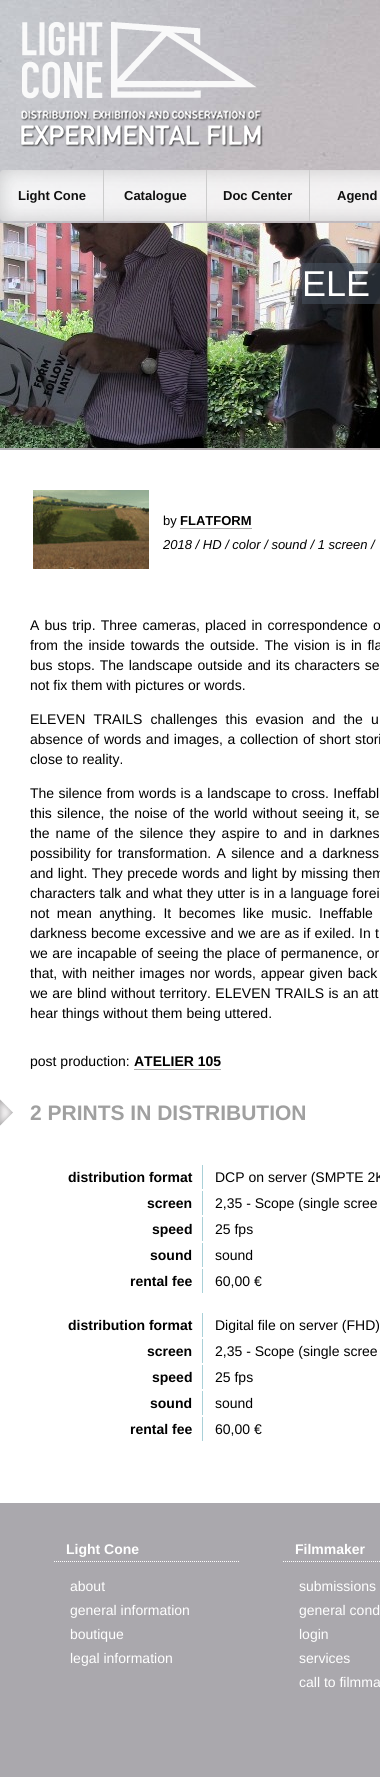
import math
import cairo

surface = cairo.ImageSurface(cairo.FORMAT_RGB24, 380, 1777)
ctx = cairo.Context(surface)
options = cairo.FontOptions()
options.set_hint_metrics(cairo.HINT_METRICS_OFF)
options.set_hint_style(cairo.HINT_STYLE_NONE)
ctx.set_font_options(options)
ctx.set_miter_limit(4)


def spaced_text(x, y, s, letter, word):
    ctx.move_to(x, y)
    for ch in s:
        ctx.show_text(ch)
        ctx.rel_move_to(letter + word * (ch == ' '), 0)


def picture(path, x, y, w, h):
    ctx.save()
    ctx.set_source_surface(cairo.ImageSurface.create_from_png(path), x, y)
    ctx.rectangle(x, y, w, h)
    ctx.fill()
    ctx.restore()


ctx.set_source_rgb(0.667, 0.659, 0.678)
ctx.paint()
picture("img1.png", 0, 0, 380, 450)
picture("img2.png", 20, 22, 243, 125)
picture("img3.png", 0, 170, 103, 51)
ctx.select_font_face("Liberation Sans", cairo.FONT_SLANT_NORMAL, cairo.FONT_WEIGHT_BOLD)
ctx.set_font_size(13)
ctx.set_source_rgb(0.063, 0.063, 0.063)
ctx.move_to(18, 200)
ctx.show_text("Light Cone")
picture("img4.png", 104, 170, 102, 51)
ctx.set_source_rgb(0.8, 0.8, 0.8)
ctx.rectangle(103, 170, 1, 51)
ctx.fill()
ctx.set_source_rgb(0.063, 0.063, 0.063)
ctx.move_to(124, 200)
ctx.show_text("Catalogue")
picture("img5.png", 207, 170, 102, 51)
ctx.set_source_rgb(0.8, 0.8, 0.8)
ctx.rectangle(206, 170, 1, 51)
ctx.fill()
ctx.set_source_rgb(0.063, 0.063, 0.063)
ctx.move_to(223, 200)
ctx.show_text("Doc Center")
picture("img6.png", 310, 170, 70, 51)
ctx.set_source_rgb(0.8, 0.8, 0.8)
ctx.rectangle(309, 170, 1, 51)
ctx.fill()
ctx.set_source_rgb(0.063, 0.063, 0.063)
ctx.move_to(337, 200)
ctx.show_text("Agend")
picture("img7.png", 0, 223, 380, 225)
ctx.set_source_rgba(0.29, 0.337, 0.392, 0.5)
ctx.rectangle(302, 263, 78, 41)
ctx.fill()
ctx.select_font_face("Liberation Sans")
ctx.set_font_size(36)
ctx.set_source_rgb(1, 1, 1)
ctx.move_to(302, 296)
ctx.show_text("ELE")
ctx.rectangle(0, 450, 380, 1053)
ctx.fill()
picture("img8.png", 33, 490, 116, 79)
ctx.set_font_size(13)
ctx.set_source_rgb(0, 0, 0)
ctx.move_to(163, 525)
ctx.show_text("by")
ctx.select_font_face("Liberation Sans", cairo.FONT_SLANT_NORMAL, cairo.FONT_WEIGHT_BOLD)
ctx.move_to(180, 525)
ctx.show_text("FLATFORM")
ctx.set_source_rgb(0.667, 0.667, 0.667)
ctx.rectangle(180, 528, 72, 1)
ctx.fill()
ctx.select_font_face("Liberation Sans", cairo.FONT_SLANT_ITALIC)
ctx.set_source_rgb(0, 0, 0)
ctx.move_to(163, 549)
ctx.show_text("2018 / HD / color / sound / 1 screen /")
ctx.select_font_face("Liberation Sans")
ctx.set_font_size(14)
spaced_text(30, 630, "A bus trip. Three cameras, placed in correspondence o", 0, 1.25)
spaced_text(30, 650, "from the inside towards the outside. The vision is in fla", 0, 1.6)
spaced_text(30, 670, "bus stops. The landscape outside and its characters se", 0, 1)
ctx.move_to(30, 690)
ctx.show_text("not fix them with pictures or words.")
spaced_text(30, 724, "ELEVEN TRAILS challenges this evasion and the u", 0, 4.25)
spaced_text(30, 744, "absence of words and images, a collection of short stori", 0, 0.75)
ctx.move_to(30, 764)
ctx.show_text("close to reality.")
spaced_text(30, 798, "The silence from words is a landscape to cross. Ineffabl", 0, 0.5)
spaced_text(30, 818, "this silence, the noise of the world without seeing it, se", 0, 1.25)
spaced_text(30, 838, "the name of the silence they aspire to and in darknes", 0, 2.1)
spaced_text(30, 858, "possibility for transformation. A silence and a darkness", 0, 1.5)
spaced_text(30, 878, "and light. They precede words and light by missing them", 0, 0.5)
spaced_text(30, 898, "characters talk and what they utter is in a language forei", 0, 0.25)
spaced_text(30, 918, "not mean anything. It becomes like music. Ineffable", 0, 3.5)
spaced_text(30, 938, "darkness become excessive and we are as if exiled. In t", 0, 0.25)
spaced_text(30, 958, "we are incapable of seeing the place of permanence, or", 0, 0.5)
spaced_text(30, 978, "that, with neither images nor words, appear given back", 0, 1)
spaced_text(30, 998, "we are blind without territory. ELEVEN TRAILS is an att", 0, 0.5)
ctx.move_to(30, 1018)
ctx.show_text("hear things without them being uttered.")
ctx.move_to(30, 1066)
ctx.show_text("post production:")
ctx.select_font_face("Liberation Sans", cairo.FONT_SLANT_NORMAL, cairo.FONT_WEIGHT_BOLD)
ctx.move_to(134, 1066)
ctx.show_text("ATELIER 105")
ctx.set_source_rgb(0.667, 0.667, 0.667)
ctx.rectangle(134, 1069, 87, 1)
ctx.fill()
picture("img9.png", 0, 1099, 13, 27)
ctx.set_font_size(21)
ctx.set_source_rgb(0.627, 0.627, 0.627)
ctx.move_to(30, 1120)
ctx.show_text("2 PRINTS IN DISTRIBUTION")
ctx.set_source_rgb(0.663, 0.816, 0.847)
ctx.rectangle(202, 1165, 1, 24)
ctx.fill()
ctx.set_font_size(14)
ctx.set_source_rgb(0, 0, 0)
ctx.move_to(68, 1182)
ctx.show_text("distribution format")
ctx.select_font_face("Liberation Sans")
ctx.move_to(215, 1182)
ctx.show_text("DCP on server (SMPTE 2K")
ctx.set_source_rgb(0.663, 0.816, 0.847)
ctx.rectangle(202, 1191, 1, 24)
ctx.fill()
ctx.select_font_face("Liberation Sans", cairo.FONT_SLANT_NORMAL, cairo.FONT_WEIGHT_BOLD)
ctx.set_source_rgb(0, 0, 0)
ctx.move_to(147, 1208)
ctx.show_text("screen")
ctx.select_font_face("Liberation Sans")
ctx.move_to(215, 1208)
ctx.show_text("2,35 - Scope (single scree")
ctx.set_source_rgb(0.663, 0.816, 0.847)
ctx.rectangle(202, 1217, 1, 24)
ctx.fill()
ctx.select_font_face("Liberation Sans", cairo.FONT_SLANT_NORMAL, cairo.FONT_WEIGHT_BOLD)
ctx.set_source_rgb(0, 0, 0)
ctx.move_to(152, 1234)
ctx.show_text("speed")
ctx.select_font_face("Liberation Sans")
ctx.move_to(215, 1234)
ctx.show_text("25 fps")
ctx.set_source_rgb(0.663, 0.816, 0.847)
ctx.rectangle(202, 1243, 1, 24)
ctx.fill()
ctx.select_font_face("Liberation Sans", cairo.FONT_SLANT_NORMAL, cairo.FONT_WEIGHT_BOLD)
ctx.set_source_rgb(0, 0, 0)
ctx.move_to(150, 1260)
ctx.show_text("sound")
ctx.select_font_face("Liberation Sans")
ctx.move_to(215, 1260)
ctx.show_text("sound")
ctx.set_source_rgb(0.663, 0.816, 0.847)
ctx.rectangle(202, 1269, 1, 24)
ctx.fill()
ctx.select_font_face("Liberation Sans", cairo.FONT_SLANT_NORMAL, cairo.FONT_WEIGHT_BOLD)
ctx.set_source_rgb(0, 0, 0)
ctx.move_to(130, 1286)
ctx.show_text("rental fee")
ctx.select_font_face("Liberation Sans")
ctx.move_to(215, 1286)
ctx.show_text("60,00 €")
ctx.set_source_rgb(0.663, 0.816, 0.847)
ctx.rectangle(202, 1313, 1, 24)
ctx.fill()
ctx.select_font_face("Liberation Sans", cairo.FONT_SLANT_NORMAL, cairo.FONT_WEIGHT_BOLD)
ctx.set_source_rgb(0, 0, 0)
ctx.move_to(68, 1330)
ctx.show_text("distribution format")
ctx.select_font_face("Liberation Sans")
ctx.move_to(215, 1330)
ctx.show_text("Digital file on server (FHD)")
ctx.set_source_rgb(0.663, 0.816, 0.847)
ctx.rectangle(202, 1339, 1, 24)
ctx.fill()
ctx.select_font_face("Liberation Sans", cairo.FONT_SLANT_NORMAL, cairo.FONT_WEIGHT_BOLD)
ctx.set_source_rgb(0, 0, 0)
ctx.move_to(147, 1356)
ctx.show_text("screen")
ctx.select_font_face("Liberation Sans")
ctx.move_to(215, 1356)
ctx.show_text("2,35 - Scope (single scree")
ctx.set_source_rgb(0.663, 0.816, 0.847)
ctx.rectangle(202, 1365, 1, 24)
ctx.fill()
ctx.select_font_face("Liberation Sans", cairo.FONT_SLANT_NORMAL, cairo.FONT_WEIGHT_BOLD)
ctx.set_source_rgb(0, 0, 0)
ctx.move_to(152, 1382)
ctx.show_text("speed")
ctx.select_font_face("Liberation Sans")
ctx.move_to(215, 1382)
ctx.show_text("25 fps")
ctx.set_source_rgb(0.663, 0.816, 0.847)
ctx.rectangle(202, 1391, 1, 24)
ctx.fill()
ctx.select_font_face("Liberation Sans", cairo.FONT_SLANT_NORMAL, cairo.FONT_WEIGHT_BOLD)
ctx.set_source_rgb(0, 0, 0)
ctx.move_to(150, 1408)
ctx.show_text("sound")
ctx.select_font_face("Liberation Sans")
ctx.move_to(215, 1408)
ctx.show_text("sound")
ctx.set_source_rgb(0.663, 0.816, 0.847)
ctx.rectangle(202, 1417, 1, 24)
ctx.fill()
ctx.select_font_face("Liberation Sans", cairo.FONT_SLANT_NORMAL, cairo.FONT_WEIGHT_BOLD)
ctx.set_source_rgb(0, 0, 0)
ctx.move_to(130, 1434)
ctx.show_text("rental fee")
ctx.select_font_face("Liberation Sans")
ctx.move_to(215, 1434)
ctx.show_text("60,00 €")
ctx.new_path()
ctx.move_to(54, 1561.5)
ctx.line_to(239, 1561.5)
ctx.set_source_rgb(1, 1, 1)
ctx.set_line_width(1)
ctx.set_dash([1, 1])
ctx.stroke()
ctx.select_font_face("Liberation Sans", cairo.FONT_SLANT_NORMAL, cairo.FONT_WEIGHT_BOLD)
ctx.move_to(66, 1554)
ctx.show_text("Light Cone")
ctx.select_font_face("Liberation Sans")
ctx.move_to(70, 1591)
ctx.show_text("about")
ctx.move_to(70, 1615)
ctx.show_text("general information")
ctx.move_to(70, 1639)
ctx.show_text("boutique")
ctx.move_to(70, 1663)
ctx.show_text("legal information")
ctx.new_path()
ctx.move_to(283, 1561.5)
ctx.line_to(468, 1561.5)
ctx.stroke()
ctx.select_font_face("Liberation Sans", cairo.FONT_SLANT_NORMAL, cairo.FONT_WEIGHT_BOLD)
ctx.move_to(295, 1554)
ctx.show_text("Filmmaker")
ctx.select_font_face("Liberation Sans")
ctx.move_to(299, 1591)
ctx.show_text("submissions")
ctx.move_to(299, 1615)
ctx.show_text("general cond")
ctx.move_to(299, 1639)
ctx.show_text("login")
ctx.move_to(299, 1663)
ctx.show_text("services")
ctx.move_to(299, 1687)
ctx.show_text("call to filmma")
surface.write_to_png("page.png")
